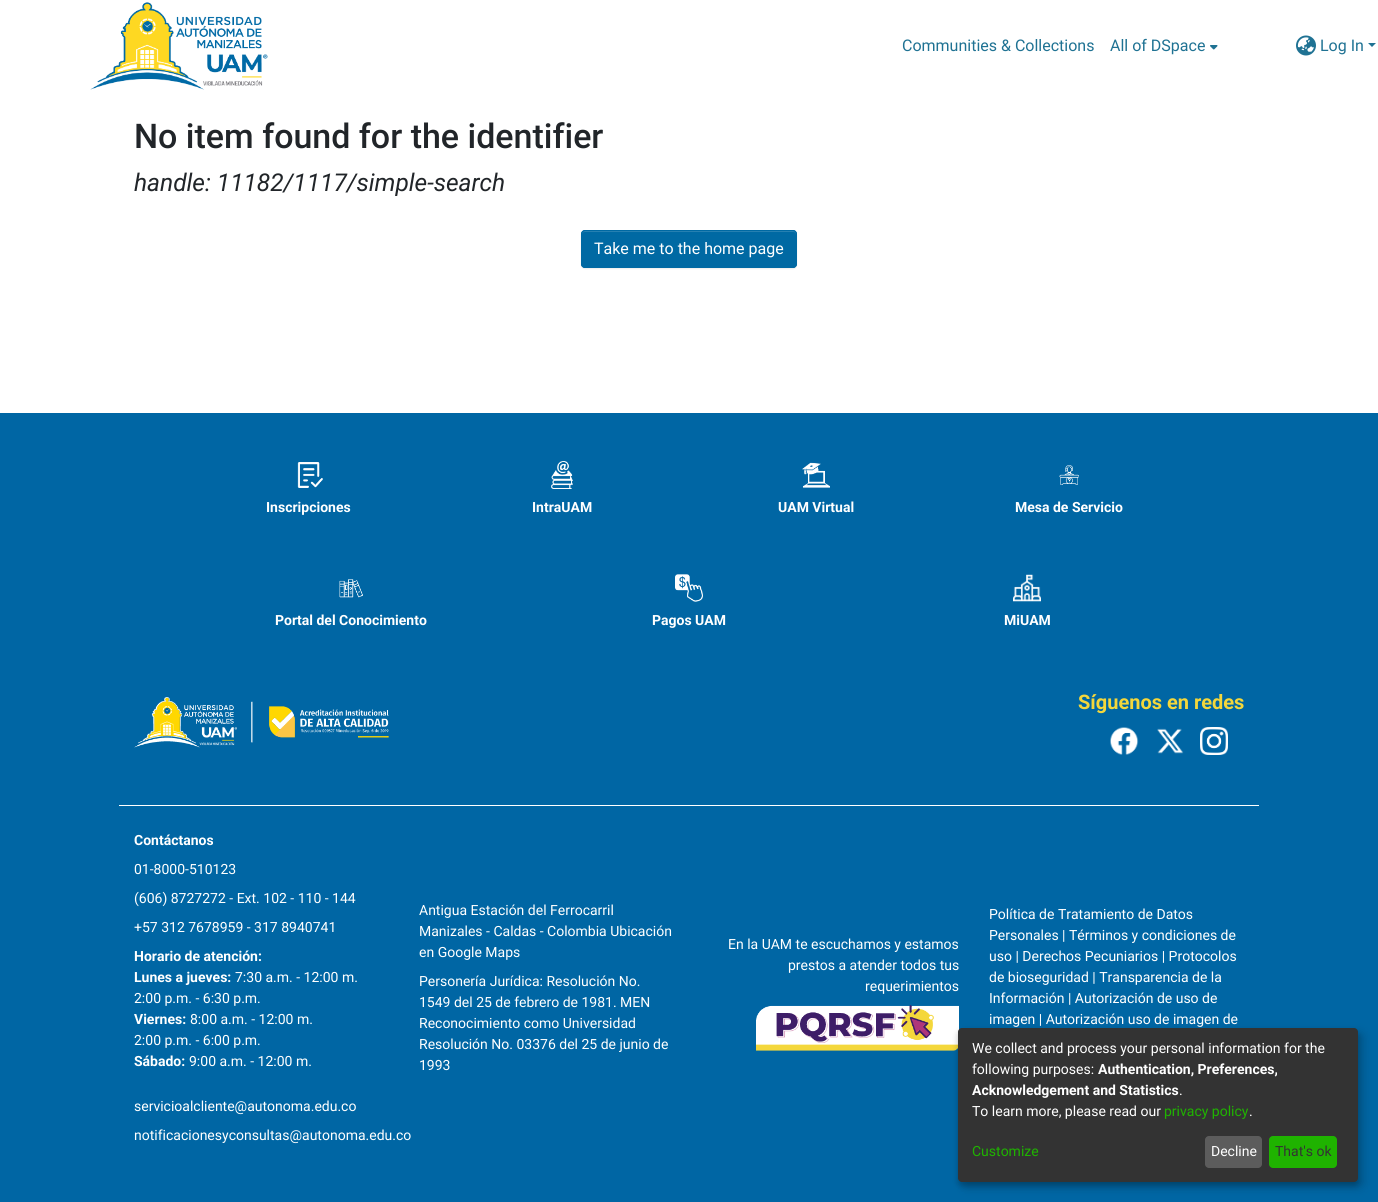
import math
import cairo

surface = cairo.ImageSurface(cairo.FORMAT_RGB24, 1378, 1202)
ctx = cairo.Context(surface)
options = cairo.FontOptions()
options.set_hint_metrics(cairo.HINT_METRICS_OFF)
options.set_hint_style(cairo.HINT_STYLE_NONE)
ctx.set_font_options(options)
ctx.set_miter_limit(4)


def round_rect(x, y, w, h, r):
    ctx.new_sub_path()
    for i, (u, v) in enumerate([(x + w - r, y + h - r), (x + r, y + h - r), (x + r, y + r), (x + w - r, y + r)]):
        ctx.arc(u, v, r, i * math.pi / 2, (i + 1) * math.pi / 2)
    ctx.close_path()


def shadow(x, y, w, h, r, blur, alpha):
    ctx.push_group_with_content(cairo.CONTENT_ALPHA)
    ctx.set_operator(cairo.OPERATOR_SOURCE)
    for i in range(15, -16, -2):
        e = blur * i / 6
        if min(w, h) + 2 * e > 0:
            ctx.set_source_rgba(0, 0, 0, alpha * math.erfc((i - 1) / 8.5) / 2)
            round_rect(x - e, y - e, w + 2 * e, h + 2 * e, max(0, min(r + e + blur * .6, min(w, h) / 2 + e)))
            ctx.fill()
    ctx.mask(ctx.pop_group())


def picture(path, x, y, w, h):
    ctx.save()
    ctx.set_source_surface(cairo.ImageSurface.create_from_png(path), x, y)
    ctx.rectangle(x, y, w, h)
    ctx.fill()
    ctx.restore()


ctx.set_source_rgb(1, 1, 1)
ctx.paint()
picture("img1.png", 90, 2, 178, 88)
ctx.select_font_face("Roboto")
ctx.set_font_size(16)
ctx.set_source_rgb(0.122, 0.447, 0.576)
ctx.move_to(902, 51)
ctx.show_text("Communities & Collections")
ctx.move_to(1110, 51)
ctx.show_text("All of DSpace")
picture("img2.png", 1210, 45, 8, 5)
picture("img3.png", 1296, 35, 20, 21)
ctx.move_to(1320, 51)
ctx.show_text("Log In")
ctx.new_path()
ctx.move_to(1368, 43)
ctx.line_to(1376, 43)
ctx.line_to(1372, 47)
ctx.close_path()
ctx.fill()
ctx.select_font_face("Roboto Medium")
ctx.set_font_size(34)
ctx.set_source_rgb(0.129, 0.145, 0.161)
ctx.move_to(134, 148)
ctx.show_text("No item found for the identifier")
ctx.select_font_face("Roboto", cairo.FONT_SLANT_ITALIC)
ctx.set_font_size(24.5)
ctx.move_to(134, 191)
ctx.show_text("handle: 11182/1117/simple-search")
ctx.set_source_rgb(0, 0, 0)
shadow(581, 231, 216, 38, 4, 0.5, 0.07)
ctx.set_source_rgb(0, 0.412, 0.639)
round_rect(581, 230, 216, 38, 4)
ctx.fill()
ctx.set_source_rgb(0.149, 0.502, 0.694)
ctx.new_path()
ctx.move_to(585, 232)
ctx.line_to(793, 232)
ctx.curve_to(795, 232, 796, 233, 796, 235)
ctx.line_to(796, 234)
ctx.curve_to(796, 232, 795, 231, 793, 231)
ctx.line_to(585, 231)
ctx.curve_to(583, 231, 582, 232, 582, 234)
ctx.line_to(582, 235)
ctx.curve_to(582, 233, 583, 232, 585, 232)
ctx.close_path()
ctx.fill()
round_rect(581.5, 230.5, 215, 37, 3.5)
ctx.set_source_rgb(0, 0.412, 0.639)
ctx.set_line_width(1)
ctx.stroke()
ctx.select_font_face("Roboto")
ctx.set_font_size(16)
ctx.set_source_rgb(1, 1, 1)
ctx.move_to(594, 254)
ctx.show_text("Take me to the home page")
ctx.set_source_rgb(0, 0.4, 0.643)
ctx.rectangle(0, 413, 1378, 789)
ctx.fill()
picture("img4.png", 297, 462, 26, 26)
ctx.select_font_face("Roboto", cairo.FONT_SLANT_NORMAL, cairo.FONT_WEIGHT_BOLD)
ctx.set_font_size(14)
ctx.set_source_rgb(1, 1, 1)
ctx.move_to(266, 512)
ctx.show_text("Inscripciones")
picture("img5.png", 551, 461, 22, 28)
ctx.move_to(532, 512)
ctx.show_text("IntraUAM")
picture("img6.png", 802, 462, 28, 26)
ctx.move_to(778, 512)
ctx.show_text("UAM Virtual")
picture("img7.png", 1059, 465, 20, 20)
ctx.move_to(1015, 512)
ctx.show_text("Mesa de Servicio")
picture("img8.png", 339, 579, 24, 19)
ctx.move_to(275, 625)
ctx.show_text("Portal del Conocimiento")
picture("img9.png", 675, 574, 28, 28)
ctx.move_to(652, 625)
ctx.show_text("Pagos UAM")
picture("img10.png", 1013, 574, 28, 28)
ctx.move_to(1004, 625)
ctx.show_text("MiUAM")
ctx.rectangle(119, 805, 1140, 1)
ctx.fill()
picture("img11.png", 134, 697, 255, 51)
ctx.set_font_size(20)
ctx.set_source_rgb(0.957, 0.843, 0.231)
ctx.move_to(1078, 709)
ctx.show_text("Síguenos en redes")
picture("img12.png", 1110, 727, 29, 28)
picture("img13.png", 1157, 728, 27, 26)
picture("img14.png", 1200, 727, 28, 28)
ctx.set_font_size(14)
ctx.set_source_rgb(1, 1, 1)
ctx.move_to(134, 845)
ctx.show_text("Contáctanos")
ctx.select_font_face("Roboto")
ctx.move_to(134, 874)
ctx.show_text("01-8000-510123")
ctx.move_to(134, 903)
ctx.show_text("(606) 8727272 - Ext. 102 - 110 - 144")
ctx.move_to(134, 932)
ctx.show_text("+57 312 7678959 - 317 8940741")
ctx.select_font_face("Roboto", cairo.FONT_SLANT_NORMAL, cairo.FONT_WEIGHT_BOLD)
ctx.move_to(134, 961)
ctx.show_text("Horario de atención:")
ctx.move_to(134, 982)
ctx.show_text("Lunes a jueves:")
ctx.select_font_face("Roboto")
ctx.move_to(235, 982)
ctx.show_text("7:30 a.m. - 12:00 m.")
ctx.move_to(134, 1003)
ctx.show_text("2:00 p.m. - 6:30 p.m.")
ctx.select_font_face("Roboto", cairo.FONT_SLANT_NORMAL, cairo.FONT_WEIGHT_BOLD)
ctx.move_to(134, 1024)
ctx.show_text("Viernes:")
ctx.select_font_face("Roboto")
ctx.move_to(190, 1024)
ctx.show_text("8:00 a.m. - 12:00 m.")
ctx.move_to(134, 1045)
ctx.show_text("2:00 p.m. - 6:00 p.m.")
ctx.select_font_face("Roboto", cairo.FONT_SLANT_NORMAL, cairo.FONT_WEIGHT_BOLD)
ctx.move_to(134, 1066)
ctx.show_text("Sábado:")
ctx.select_font_face("Roboto")
ctx.move_to(189, 1066)
ctx.show_text("9:00 a.m. - 12:00 m.")
ctx.move_to(134, 1111)
ctx.show_text("servicioalcliente@autonoma.edu.co")
ctx.move_to(134, 1140)
ctx.show_text("notificacionesyconsultas@autonoma.edu.co")
ctx.move_to(419, 915)
ctx.show_text("Antigua Estación del Ferrocarril")
ctx.move_to(419, 936)
ctx.show_text("Manizales - Caldas - Colombia Ubicación")
ctx.move_to(419, 957)
ctx.show_text("en Google Maps")
ctx.move_to(419, 986)
ctx.show_text("Personería Jurídica: Resolución No.")
ctx.move_to(419, 1007)
ctx.show_text("1549 del 25 de febrero de 1981. MEN")
ctx.move_to(419, 1028)
ctx.show_text("Reconocimiento como Universidad")
ctx.move_to(419, 1049)
ctx.show_text("Resolución No. 03376 del 25 de junio de")
ctx.move_to(419, 1070)
ctx.show_text("1993")
ctx.move_to(728, 949)
ctx.show_text("En la UAM te escuchamos y estamos")
ctx.move_to(788, 970)
ctx.show_text("prestos a atender todos tus")
ctx.move_to(865, 991)
ctx.show_text("requerimientos")
picture("img15.png", 756, 1005, 203, 46)
ctx.move_to(989, 919)
ctx.show_text("Política de Tratamiento de Datos")
ctx.move_to(989, 940)
ctx.show_text("Personales | Términos y condiciones de")
ctx.move_to(989, 961)
ctx.show_text("uso | Derechos Pecuniarios | Protocolos")
ctx.move_to(989, 982)
ctx.show_text("de bioseguridad | Transparencia de la")
ctx.move_to(989, 1003)
ctx.show_text("Información | Autorización de uso de")
ctx.move_to(989, 1024)
ctx.show_text("imagen | Autorización uso de imagen de")
ctx.set_source_rgb(0, 0, 0)
shadow(963, 1033, 400, 154, 4, 5, 0.19)
shadow(958, 1032, 400, 154, 4, 3, 0.2)
ctx.set_source_rgb(0.2, 0.2, 0.2)
round_rect(958, 1028, 400, 154, 4)
ctx.fill()
ctx.set_source_rgb(1, 1, 1)
ctx.move_to(972, 1053)
ctx.show_text("We collect and process your personal information for the")
ctx.move_to(972, 1074)
ctx.show_text("following purposes:")
ctx.select_font_face("Roboto", cairo.FONT_SLANT_NORMAL, cairo.FONT_WEIGHT_BOLD)
ctx.move_to(1098, 1074)
ctx.show_text("Authentication, Preferences,")
ctx.move_to(972, 1095)
ctx.show_text("Acknowledgement and Statistics")
ctx.select_font_face("Roboto")
ctx.move_to(1179, 1095)
ctx.show_text(".")
ctx.move_to(972, 1116)
ctx.show_text("To learn more, please read our")
ctx.set_source_rgb(0.122, 0.702, 0)
ctx.move_to(1164, 1116)
ctx.show_text("privacy policy")
ctx.set_source_rgb(1, 1, 1)
ctx.move_to(1249, 1116)
ctx.show_text(".")
ctx.set_source_rgb(0.122, 0.702, 0)
ctx.move_to(972, 1156)
ctx.show_text("Customize")
ctx.set_source_rgb(0.361, 0.361, 0.361)
round_rect(1205, 1136, 57, 32, 4)
ctx.fill()
ctx.set_source_rgb(1, 1, 1)
ctx.move_to(1211, 1156)
ctx.show_text("Decline")
ctx.set_source_rgb(0.122, 0.702, 0)
round_rect(1269, 1136, 68, 32, 4)
ctx.fill()
ctx.set_source_rgb(0.2, 0.2, 0.2)
ctx.move_to(1275, 1156)
ctx.show_text("That's ok")
surface.write_to_png("page.png")
